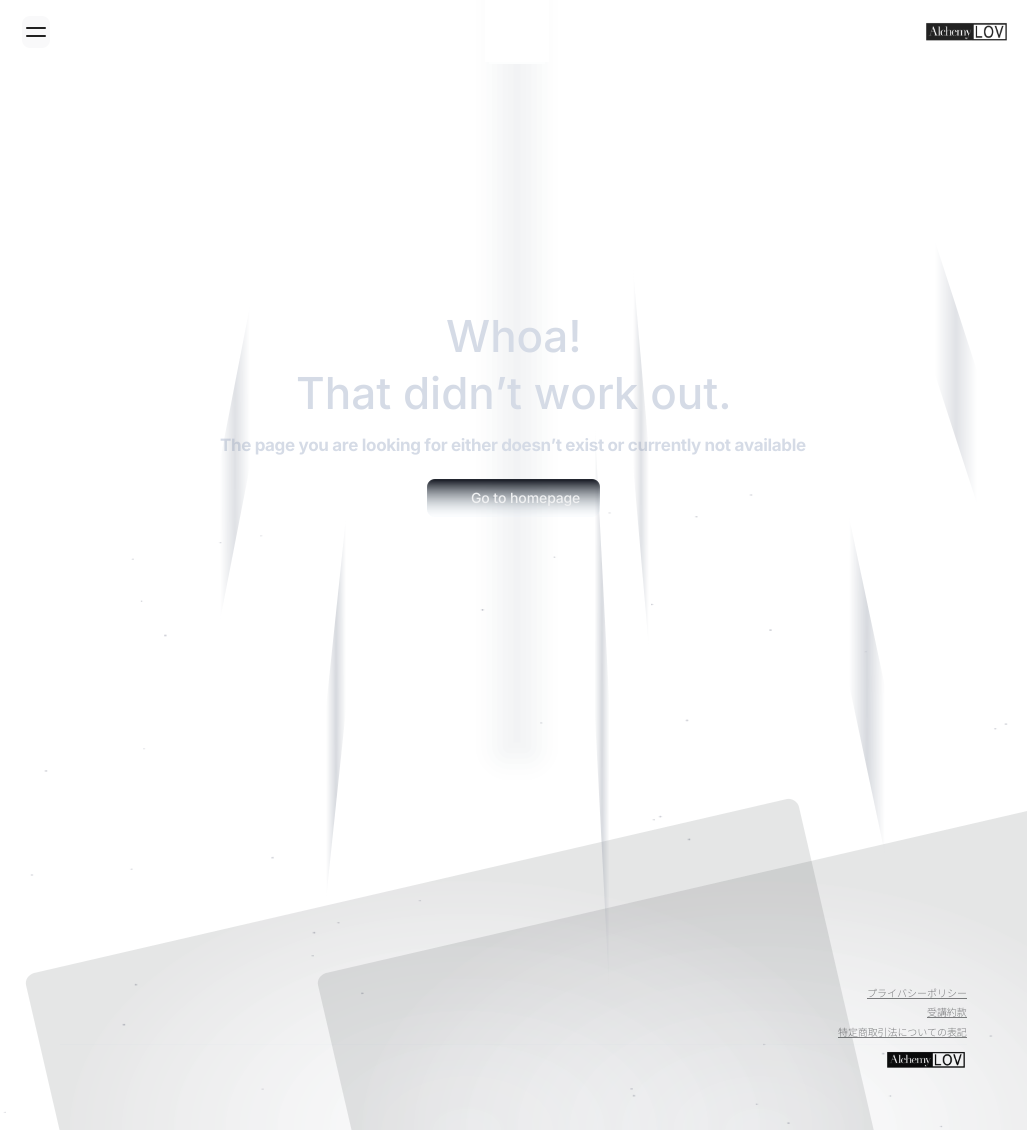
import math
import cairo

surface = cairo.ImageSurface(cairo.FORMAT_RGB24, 1027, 1130)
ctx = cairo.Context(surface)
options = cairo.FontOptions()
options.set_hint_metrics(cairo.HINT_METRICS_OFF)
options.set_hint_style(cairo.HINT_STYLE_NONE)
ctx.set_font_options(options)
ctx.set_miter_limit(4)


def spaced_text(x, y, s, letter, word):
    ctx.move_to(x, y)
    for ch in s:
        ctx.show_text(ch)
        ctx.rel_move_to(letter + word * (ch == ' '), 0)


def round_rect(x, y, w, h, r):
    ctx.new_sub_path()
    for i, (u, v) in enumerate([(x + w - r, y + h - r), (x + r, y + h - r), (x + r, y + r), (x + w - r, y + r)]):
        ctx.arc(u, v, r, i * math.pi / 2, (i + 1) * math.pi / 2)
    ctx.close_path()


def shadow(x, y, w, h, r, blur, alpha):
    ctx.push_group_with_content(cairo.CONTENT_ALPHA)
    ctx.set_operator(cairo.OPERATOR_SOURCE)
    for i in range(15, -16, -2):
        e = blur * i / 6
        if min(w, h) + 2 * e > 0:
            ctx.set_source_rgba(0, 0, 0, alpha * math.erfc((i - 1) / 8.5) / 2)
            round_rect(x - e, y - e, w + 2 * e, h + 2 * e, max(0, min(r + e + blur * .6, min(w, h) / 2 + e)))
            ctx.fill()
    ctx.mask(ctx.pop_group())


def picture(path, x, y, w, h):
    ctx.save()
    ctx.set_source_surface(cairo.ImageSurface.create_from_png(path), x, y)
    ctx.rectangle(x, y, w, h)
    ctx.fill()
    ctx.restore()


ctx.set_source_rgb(1, 1, 1)
ctx.paint()
ctx.select_font_face("Noto Sans JP Light")
ctx.set_font_size(10)
ctx.set_source_rgb(0.49, 0.494, 0.498)
ctx.move_to(867, 997)
ctx.show_text("プライバシーポリシー")
ctx.rectangle(867, 998, 100, 1)
ctx.fill()
spaced_text(927, 1016, "受講約款", -0.1, 0)
ctx.rectangle(927, 1017, 40, 1)
ctx.fill()
spaced_text(838, 1036, "特定商取引法についての表記", -0.1, 0)
ctx.rectangle(838, 1037, 129, 1)
ctx.fill()
ctx.set_source_rgb(0.988, 0.992, 0.996)
ctx.rectangle(60, 1044, 907, 1)
ctx.fill()
picture("img3.png", 887, 1051, 78, 17)
picture("img2.png", 3, 494, 1005, 634)
gradient = cairo.RadialGradient(0, 0, 0, 0, 0, 1)
gradient.set_matrix(cairo.Matrix(1 / 396, 0, 0, 1 / 249, -1 * 467 / 396, -1 * 1130 / 249))
gradient.add_color_stop_rgba(0, 0.835, 0.859, 0.902, 0.07)
gradient.add_color_stop_rgba(1, 0.016, 0.027, 0.051, 0.1)
ctx.set_source(gradient)
ctx.new_path()
ctx.move_to(34, 973)
ctx.line_to(787, 799)
ctx.curve_to(792, 798, 798, 802, 799, 807)
ctx.line_to(907, 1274)
ctx.curve_to(908, 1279, 905, 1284, 899, 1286)
ctx.line_to(146, 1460)
ctx.curve_to(141, 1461, 135, 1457, 134, 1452)
ctx.line_to(26, 985)
ctx.curve_to(25, 980, 28, 975, 34, 973)
ctx.close_path()
ctx.fill()
ctx.set_source_rgb(0.6, 0.627, 0.678)
shadow(500, -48, 34, 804, 0, 16, 0.15)
ctx.set_source_rgb(1, 1, 1)
ctx.rectangle(485, 0, 64, 62)
ctx.fill()
ctx.set_source_rgb(0.976, 0.976, 0.98)
round_rect(22, 16, 28, 32, 8)
ctx.fill()
ctx.set_source_rgb(0.129, 0.129, 0.129)
round_rect(26, 27, 20, 2, 1)
ctx.fill()
round_rect(26, 35, 20, 2, 1)
ctx.fill()
ctx.select_font_face("Inter Medium")
ctx.set_font_size(44)
ctx.set_source_rgb(0.835, 0.859, 0.902)
ctx.move_to(296, 409)
ctx.show_text("That didn’t work out.")
ctx.select_font_face("Inter", cairo.FONT_SLANT_NORMAL, cairo.FONT_WEIGHT_BOLD)
ctx.set_font_size(17)
spaced_text(220, 451, "The page you are looking for either doesn’t exist or currently not available", -0.35, 0)
gradient = cairo.RadialGradient(0, 0, 0, 0, 0, 1)
gradient.set_matrix(cairo.Matrix(1 / 396, 0, 0, 1 / 249, -1 * 759 / 396, -1 * 1130 / 249))
gradient.add_color_stop_rgba(0, 0.835, 0.859, 0.902, 0.07)
gradient.add_color_stop_rgba(1, 0.016, 0.027, 0.051, 0.1)
ctx.set_source(gradient)
ctx.new_path()
ctx.move_to(326, 973)
ctx.line_to(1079, 799)
ctx.curve_to(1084, 798, 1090, 802, 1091, 807)
ctx.line_to(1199, 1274)
ctx.curve_to(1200, 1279, 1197, 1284, 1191, 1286)
ctx.line_to(438, 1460)
ctx.curve_to(433, 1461, 427, 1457, 426, 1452)
ctx.line_to(318, 985)
ctx.curve_to(317, 980, 320, 975, 326, 973)
ctx.close_path()
ctx.fill()
gradient = cairo.RadialGradient(0, 0, 0, 0, 0, 1)
gradient.set_matrix(cairo.Matrix(1 / 18, 0, 0, 1 / 1699, -1 * 867 / 18, -1 * 685 / 1699))
gradient.add_color_stop_rgba(0, 0.6, 0.627, 0.678, 0.4)
gradient.add_color_stop_rgba(1, 0.6, 0.627, 0.678, 0)
ctx.set_source(gradient)
ctx.new_path()
ctx.move_to(497, -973)
ctx.line_to(531, -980)
ctx.line_to(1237, 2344)
ctx.line_to(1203, 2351)
ctx.close_path()
ctx.fill()
gradient = cairo.RadialGradient(0, 0, 0, 0, 0, 1)
gradient.set_matrix(cairo.Matrix(1 / 21, 0, 0, 1 / 1414, -1 * 956 / 21, -1 * 371 / 1414))
gradient.add_color_stop_rgba(0, 0.878, 0.886, 0.902, 1)
gradient.add_color_stop_rgba(1, 1, 1, 1, 1)
ctx.set_source(gradient)
ctx.new_path()
ctx.move_to(499, -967)
ctx.line_to(538, -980)
ctx.line_to(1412, 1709)
ctx.line_to(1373, 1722)
ctx.close_path()
ctx.fill()
picture("img1.png", 926, 22, 81, 19)
ctx.set_source_rgb(0.992, 0.996, 0.996)
ctx.rectangle(489, 62, 56, 2)
ctx.fill()
gradient = cairo.RadialGradient(0, 0, 0, 0, 0, 1)
gradient.set_matrix(cairo.Matrix(1 / 15, 0, 0, 1 / 1473, -1 * 235 / 15, -1 * 463 / 1473))
gradient.add_color_stop_rgba(0, 0.6, 0.627, 0.678, 0.32)
gradient.add_color_stop_rgba(1, 0.6, 0.627, 0.678, 0)
ctx.set_source(gradient)
ctx.new_path()
ctx.move_to(501, -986)
ctx.line_to(531, -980)
ctx.line_to(-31, 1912)
ctx.line_to(-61, 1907)
ctx.close_path()
ctx.fill()
gradient = cairo.RadialGradient(0, 0, 0, 0, 0, 1)
gradient.set_matrix(cairo.Matrix(1 / 10, 0, 0, 1 / 1699, -1 * 336 / 10, -1 * 709 / 1699))
gradient.add_color_stop_rgba(0, 0.6, 0.627, 0.678, 0.4)
gradient.add_color_stop_rgba(1, 0.6, 0.627, 0.678, 0)
ctx.set_source(gradient)
ctx.new_path()
ctx.move_to(504, -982)
ctx.line_to(524, -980)
ctx.line_to(168, 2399)
ctx.line_to(148, 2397)
ctx.close_path()
ctx.fill()
gradient = cairo.RadialGradient(0, 0, 0, 0, 0, 1)
gradient.set_matrix(cairo.Matrix(1 / 8, 0, 0, 1 / 1444, -1 * 641 / 8, -1 * 459 / 1444))
gradient.add_color_stop_rgba(0, 0.6, 0.627, 0.678, 0.31)
gradient.add_color_stop_rgba(1, 0.6, 0.627, 0.678, 0)
ctx.set_source(gradient)
ctx.new_path()
ctx.move_to(507, -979)
ctx.line_to(524, -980)
ctx.line_to(775, 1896)
ctx.line_to(758, 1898)
ctx.close_path()
ctx.fill()
ctx.select_font_face("Inter Medium")
ctx.set_font_size(44)
ctx.set_source_rgb(0.835, 0.859, 0.902)
ctx.move_to(446, 352)
ctx.show_text("Whoa!")
gradient = cairo.RadialGradient(0, 0, 0, 0, 0, 1)
gradient.set_matrix(cairo.Matrix(1 / 7.5, 0, 0, 1 / 1699, -1 * 602 / 7.5, -1 * 717 / 1699))
gradient.add_color_stop_rgba(0, 0.6, 0.627, 0.678, 0.4)
gradient.add_color_stop_rgba(1, 0.6, 0.627, 0.678, 0)
ctx.set_source(gradient)
ctx.new_path()
ctx.move_to(506, -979)
ctx.line_to(521, -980)
ctx.line_to(699, 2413)
ctx.line_to(684, 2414)
ctx.close_path()
ctx.fill()
gradient = cairo.LinearGradient(514, 479, 514, 517)
gradient.add_color_stop_rgba(0, 0.063, 0.075, 0.11, 1)
gradient.add_color_stop_rgba(1, 0.847, 0.906, 0.949, 0.07)
ctx.set_source(gradient)
round_rect(427, 479, 173, 38, 8)
ctx.fill()
round_rect(427.5, 479.5, 172, 37, 7.5)
ctx.set_source_rgba(0.847, 0.906, 0.949, 0.07)
ctx.set_line_width(1)
ctx.stroke()
ctx.set_font_size(14)
ctx.set_source_rgb(0.941, 0.945, 0.949)
spaced_text(471, 503, "Go to homepage", -0.1, 0)
surface.write_to_png("page.png")
